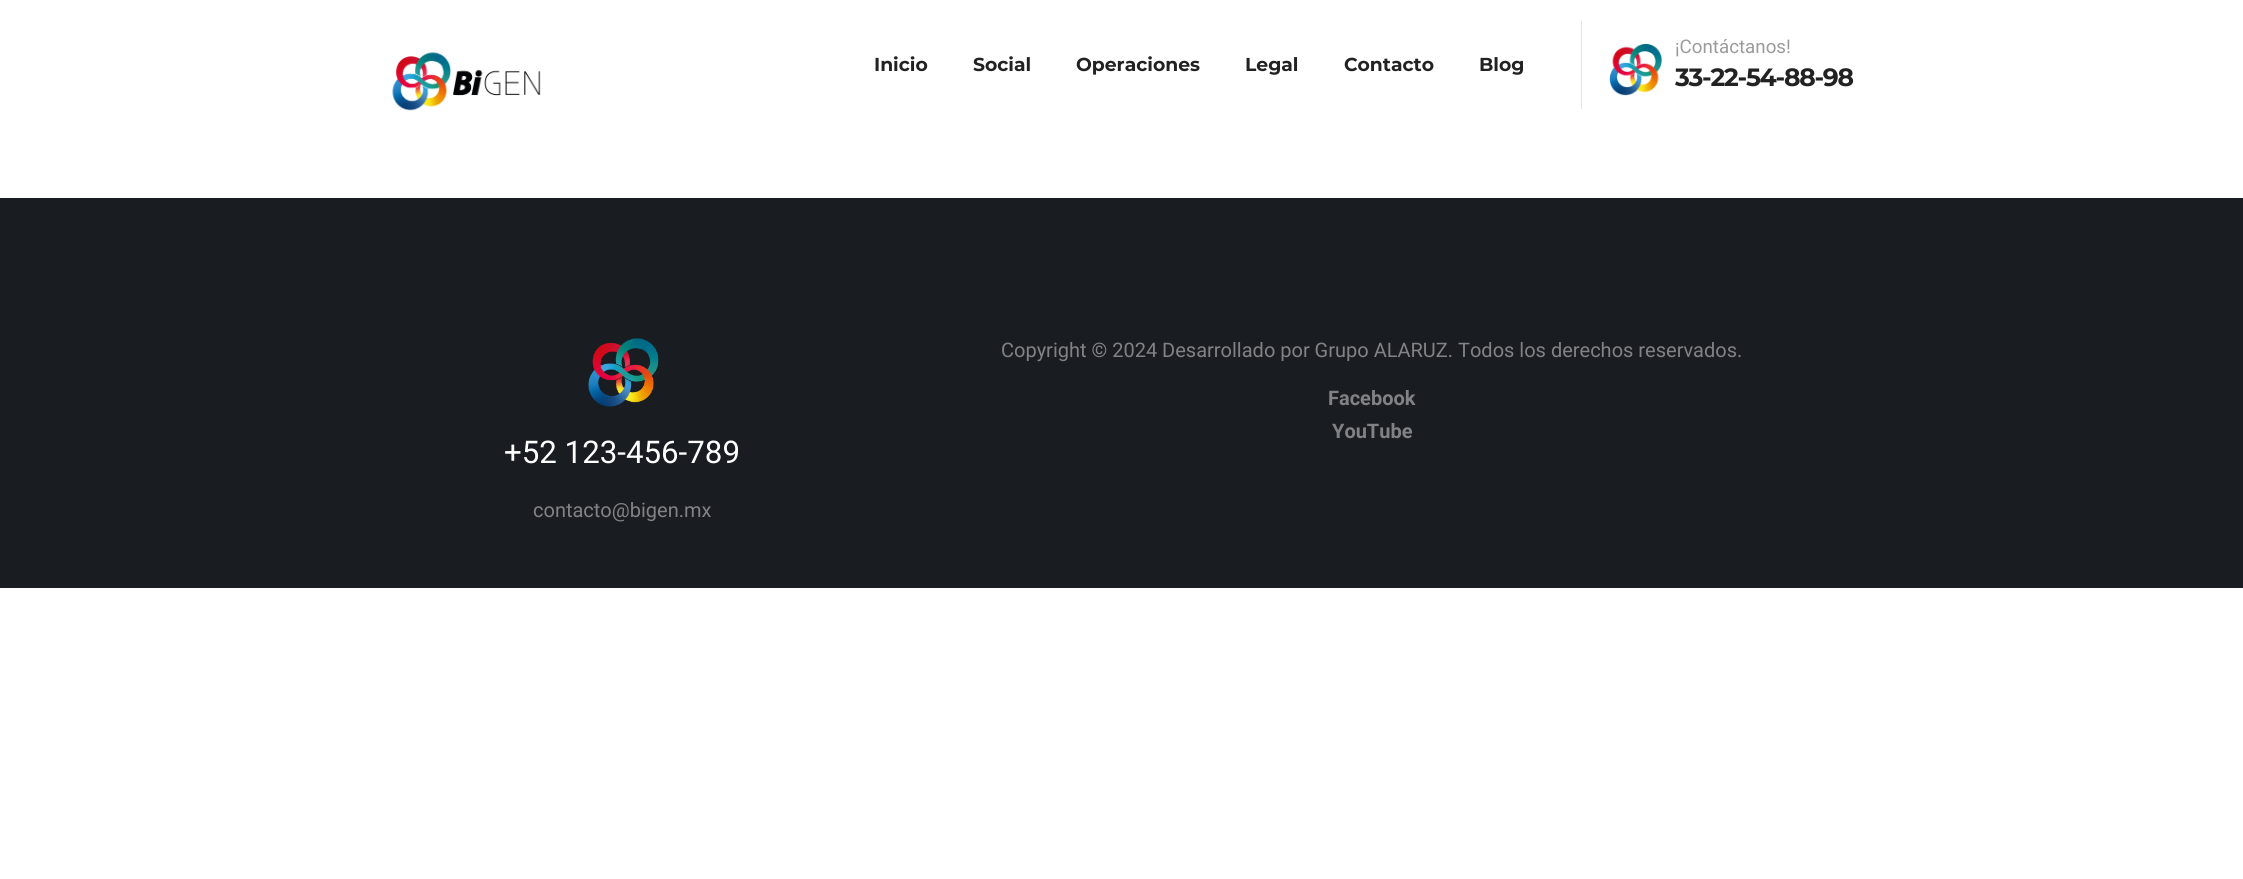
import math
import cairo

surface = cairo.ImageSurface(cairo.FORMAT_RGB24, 2243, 879)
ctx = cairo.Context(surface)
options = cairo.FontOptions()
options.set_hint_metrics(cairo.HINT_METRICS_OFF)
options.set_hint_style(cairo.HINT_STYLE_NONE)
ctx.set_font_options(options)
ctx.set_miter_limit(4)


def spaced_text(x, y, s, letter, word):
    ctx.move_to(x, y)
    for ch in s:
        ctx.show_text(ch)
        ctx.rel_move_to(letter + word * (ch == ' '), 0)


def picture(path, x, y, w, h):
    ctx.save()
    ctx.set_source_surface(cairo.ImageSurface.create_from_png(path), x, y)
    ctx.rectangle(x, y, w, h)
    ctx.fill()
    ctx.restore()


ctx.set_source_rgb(1, 1, 1)
ctx.paint()
picture("img1.png", 392, 52, 149, 59)
ctx.select_font_face("Montserrat", cairo.FONT_SLANT_NORMAL, cairo.FONT_WEIGHT_BOLD)
ctx.set_font_size(18.75)
ctx.set_source_rgb(0.133, 0.133, 0.133)
ctx.move_to(874, 71)
ctx.show_text("Inicio")
ctx.move_to(973, 71)
ctx.show_text("Social")
ctx.move_to(1076, 71)
ctx.show_text("Operaciones")
ctx.move_to(1245, 71)
ctx.show_text("Legal")
ctx.move_to(1344, 71)
ctx.show_text("Contacto")
ctx.move_to(1479, 71)
ctx.show_text("Blog")
ctx.set_source_rgb(0.902, 0.902, 0.902)
ctx.rectangle(1581, 21, 1, 88)
ctx.fill()
picture("img2.png", 1609, 43, 53, 53)
ctx.select_font_face("Roboto")
ctx.set_source_rgb(0.608, 0.608, 0.608)
ctx.move_to(1675, 53)
ctx.show_text("¡Contáctanos!")
ctx.select_font_face("Montserrat", cairo.FONT_SLANT_NORMAL, cairo.FONT_WEIGHT_BOLD)
ctx.set_font_size(25)
ctx.set_source_rgb(0.133, 0.133, 0.133)
spaced_text(1675, 86, "33-22-54-88-98", -1.25, 0)
ctx.set_source_rgb(0.098, 0.11, 0.125)
ctx.rectangle(0, 198, 2243, 390)
ctx.fill()
ctx.select_font_face("Roboto")
ctx.set_font_size(20)
ctx.set_source_rgb(0.506, 0.51, 0.522)
ctx.move_to(1001, 357)
ctx.show_text("Copyright © 2024 Desarrollado por Grupo ALARUZ. Todos los derechos reservados.")
ctx.select_font_face("Roboto", cairo.FONT_SLANT_NORMAL, cairo.FONT_WEIGHT_BOLD)
ctx.move_to(1328, 405)
ctx.show_text("Facebook")
ctx.move_to(1332, 438)
ctx.show_text("YouTube")
picture("img3.png", 588, 338, 71, 69)
ctx.select_font_face("Roboto")
ctx.set_font_size(31.25)
ctx.set_source_rgb(1, 1, 1)
ctx.move_to(504, 463)
ctx.show_text("+52 123-456-789")
ctx.set_font_size(20)
ctx.set_source_rgb(0.506, 0.51, 0.522)
ctx.move_to(533, 517)
ctx.show_text("contacto@bigen.mx")
surface.write_to_png("page.png")
